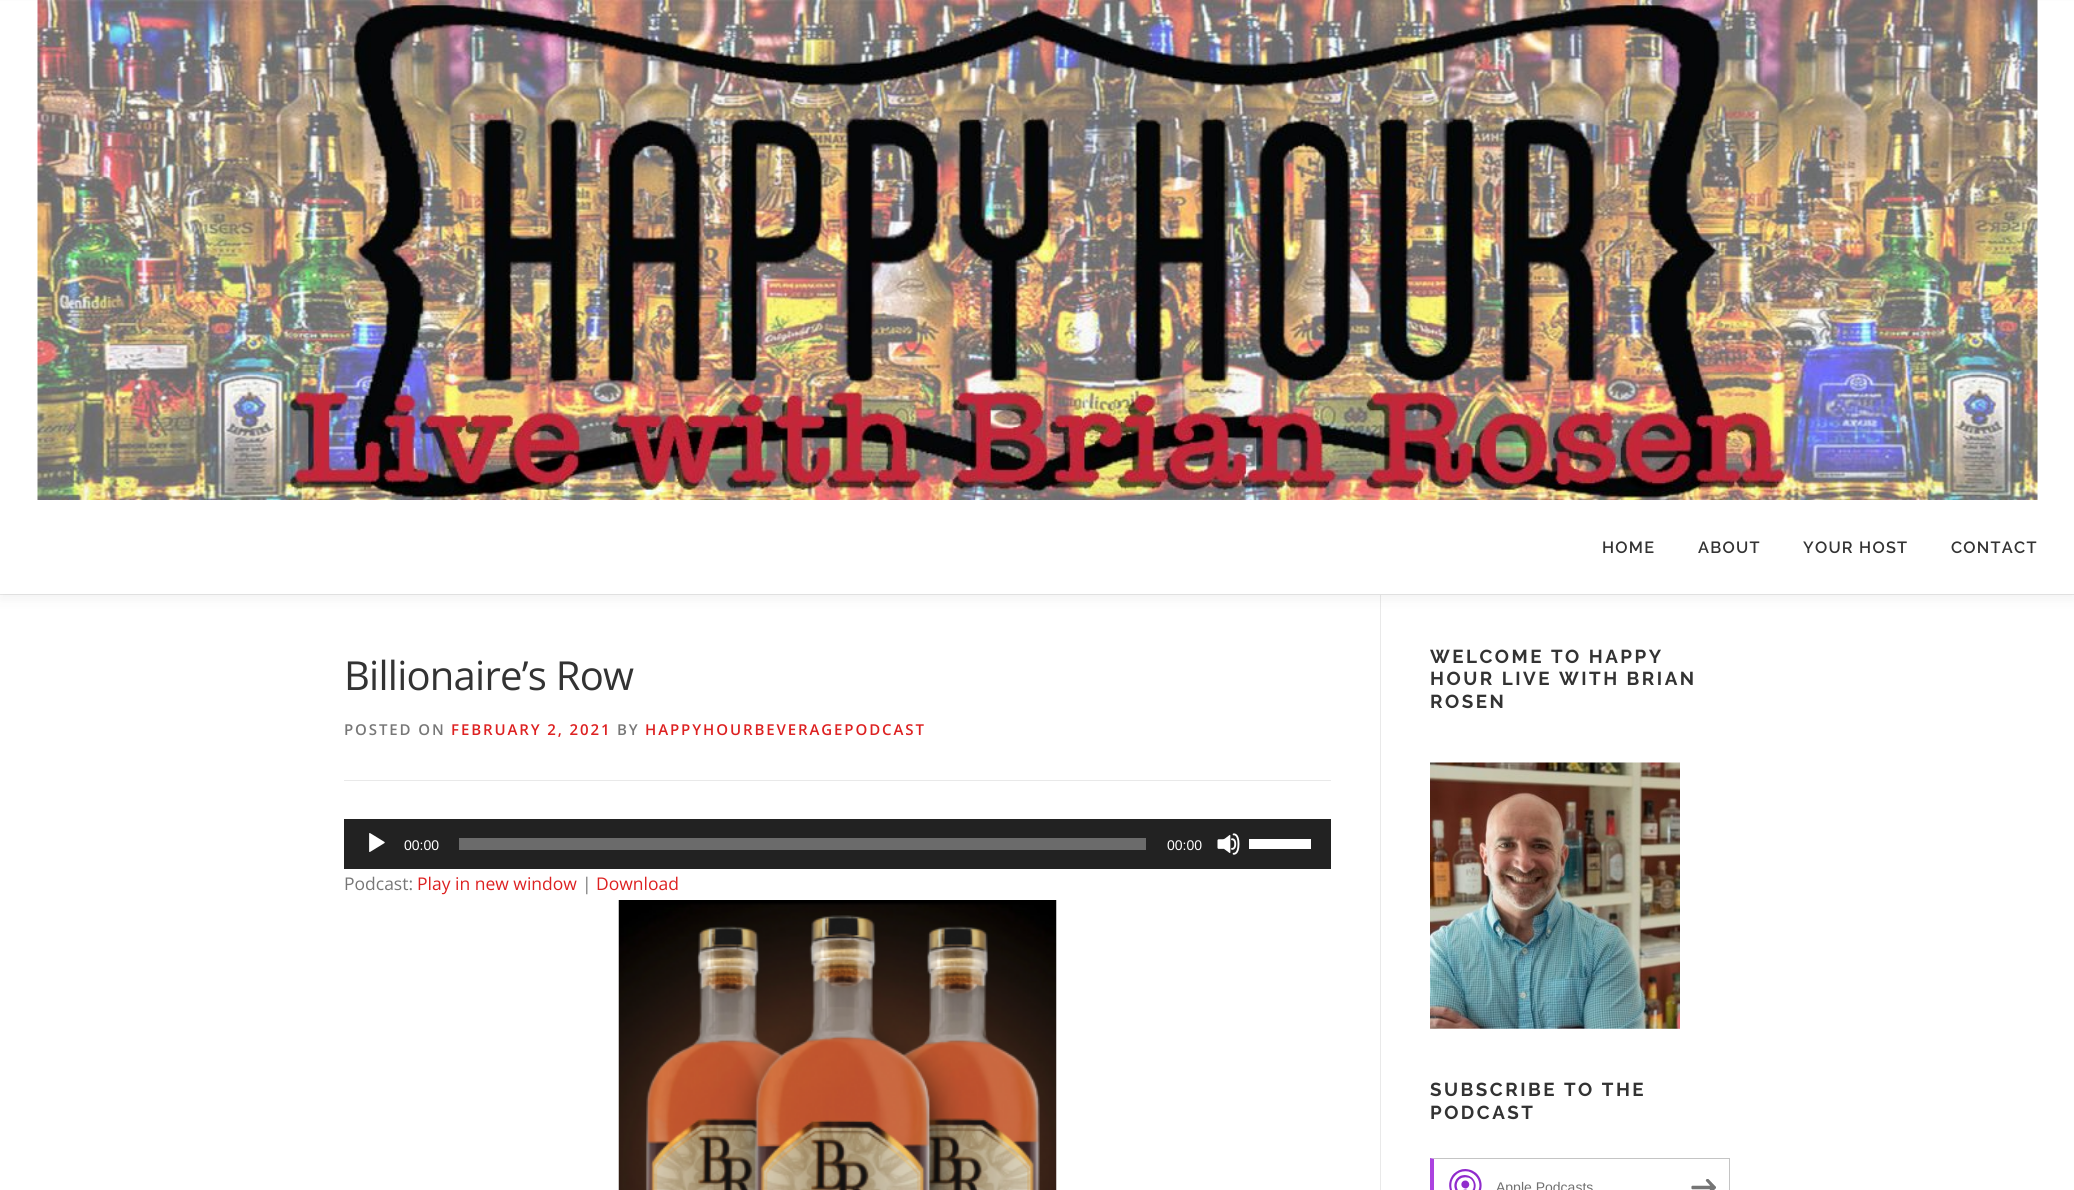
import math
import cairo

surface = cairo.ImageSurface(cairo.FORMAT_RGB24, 2074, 1190)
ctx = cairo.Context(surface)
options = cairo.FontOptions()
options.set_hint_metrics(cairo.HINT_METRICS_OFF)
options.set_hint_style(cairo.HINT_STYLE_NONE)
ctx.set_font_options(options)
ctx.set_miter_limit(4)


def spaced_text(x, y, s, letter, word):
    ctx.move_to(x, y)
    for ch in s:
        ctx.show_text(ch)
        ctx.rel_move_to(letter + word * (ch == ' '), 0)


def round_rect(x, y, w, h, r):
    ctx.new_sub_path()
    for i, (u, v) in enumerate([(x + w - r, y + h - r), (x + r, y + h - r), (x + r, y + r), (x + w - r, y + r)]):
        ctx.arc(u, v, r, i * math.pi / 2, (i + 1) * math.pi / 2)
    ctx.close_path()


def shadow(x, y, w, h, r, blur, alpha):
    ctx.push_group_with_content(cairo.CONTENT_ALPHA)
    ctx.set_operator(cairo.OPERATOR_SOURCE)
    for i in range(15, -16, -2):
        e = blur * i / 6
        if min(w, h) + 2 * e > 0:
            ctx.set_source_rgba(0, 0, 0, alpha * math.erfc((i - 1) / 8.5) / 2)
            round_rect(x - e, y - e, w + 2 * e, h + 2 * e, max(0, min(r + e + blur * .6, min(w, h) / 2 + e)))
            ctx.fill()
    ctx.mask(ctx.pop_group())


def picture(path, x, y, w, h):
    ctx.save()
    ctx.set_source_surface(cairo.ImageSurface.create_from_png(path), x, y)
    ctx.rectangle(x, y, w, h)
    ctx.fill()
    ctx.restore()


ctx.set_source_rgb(1, 1, 1)
ctx.paint()
ctx.set_source_rgb(0.914, 0.914, 0.914)
ctx.rectangle(0, 594, 2074, 1)
ctx.fill()
ctx.rectangle(1380, 595, 1, 595)
ctx.fill()
ctx.set_source_rgb(0.196, 0.196, 0.196)
shadow(0, 6, 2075, 594, 0, 6, 0.06)
ctx.set_source_rgb(1, 1, 1)
ctx.rectangle(0, 1, 2074, 593)
ctx.fill()
picture("img1.png", 37, 0, 2001, 500)
ctx.select_font_face("Raleway SemiBold")
ctx.set_font_size(16.25)
ctx.set_source_rgb(0.2, 0.2, 0.2)
spaced_text(1602, 553, "HOME", 1.25, 0)
spaced_text(1698, 553, "ABOUT", 1.25, 0)
spaced_text(1803, 553, "YOUR HOST", 1.25, 0)
spaced_text(1951, 553, "CONTACT", 1.25, 0)
ctx.select_font_face("Open Sans")
ctx.set_font_size(40)
spaced_text(344, 690, "Billionaire’s Row", -0.75, 0)
ctx.set_source_rgb(0.914, 0.914, 0.914)
ctx.rectangle(344, 780, 987, 1)
ctx.fill()
ctx.select_font_face("Open Sans SemiBold")
ctx.set_font_size(15)
ctx.set_source_rgb(0.467, 0.467, 0.467)
spaced_text(344, 735, "POSTED ON", 1.9, 0)
ctx.set_source_rgb(0.867, 0.129, 0.129)
spaced_text(451, 735, "FEBRUARY 2, 2021", 1.9, 0)
ctx.set_source_rgb(0.467, 0.467, 0.467)
spaced_text(617, 735, "BY", 1.9, 0)
ctx.set_source_rgb(0.867, 0.129, 0.129)
spaced_text(645, 735, "HAPPYHOURBEVERAGEPODCAST", 1.9, 0)
ctx.set_source_rgb(0.133, 0.133, 0.133)
ctx.rectangle(344, 819, 987, 50)
ctx.fill()
picture("img2.png", 369, 833, 16, 19)
ctx.select_font_face("Liberation Sans")
ctx.set_font_size(14)
ctx.set_source_rgb(1, 1, 1)
ctx.move_to(404, 850)
ctx.show_text("00:00")
ctx.set_source_rgb(0.42, 0.42, 0.42)
ctx.rectangle(459, 838, 687, 12)
ctx.fill()
ctx.set_source_rgb(1, 1, 1)
ctx.move_to(1167, 850)
ctx.show_text("00:00")
picture("img3.png", 1217, 833, 23, 22)
ctx.rectangle(1249, 839, 62, 10)
ctx.fill()
ctx.select_font_face("Open Sans")
ctx.set_font_size(17.5)
ctx.set_source_rgb(0.467, 0.467, 0.467)
ctx.move_to(344, 890)
ctx.show_text("Podcast:")
ctx.set_source_rgb(0.867, 0.129, 0.129)
ctx.move_to(417, 890)
ctx.show_text("Play in new window")
ctx.set_source_rgb(0.467, 0.467, 0.467)
ctx.move_to(582, 890)
ctx.show_text("|")
ctx.set_source_rgb(0.867, 0.129, 0.129)
ctx.move_to(596, 890)
ctx.show_text("Download")
picture("img4.png", 618, 900, 439, 290)
ctx.select_font_face("Raleway", cairo.FONT_SLANT_NORMAL, cairo.FONT_WEIGHT_BOLD)
ctx.set_font_size(18.75)
ctx.set_source_rgb(0.2, 0.2, 0.2)
spaced_text(1430, 663, "WELCOME TO HAPPY", 2.5, 0)
spaced_text(1430, 685, "HOUR LIVE WITH BRIAN", 2.5, 0)
spaced_text(1430, 708, "ROSEN", 2.5, 0)
picture("img5.png", 1430, 762, 250, 267)
spaced_text(1430, 1096, "SUBSCRIBE TO THE", 2.5, 0)
spaced_text(1430, 1119, "PODCAST", 2.5, 0)
ctx.set_source_rgb(0.769, 0.769, 0.769)
ctx.new_path()
ctx.move_to(1430, 1158)
ctx.line_to(1730, 1158)
ctx.line_to(1729, 1159)
ctx.line_to(1434, 1159)
ctx.close_path()
ctx.fill()
ctx.rectangle(1729, 1158, 1, 32)
ctx.fill()
ctx.set_source_rgb(0.671, 0.259, 0.875)
ctx.new_path()
ctx.move_to(1430, 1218)
ctx.line_to(1430, 1158)
ctx.line_to(1434, 1159)
ctx.line_to(1434, 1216)
ctx.close_path()
ctx.fill()
picture("img6.png", 1449, 1169, 33, 21)
ctx.select_font_face("Liberation Sans")
ctx.set_font_size(14)
ctx.set_source_rgb(0.439, 0.439, 0.439)
ctx.move_to(1496, 1192)
ctx.show_text("Apple Podcasts")
picture("img7.png", 1691, 1179, 25, 11)
surface.write_to_png("page.png")
